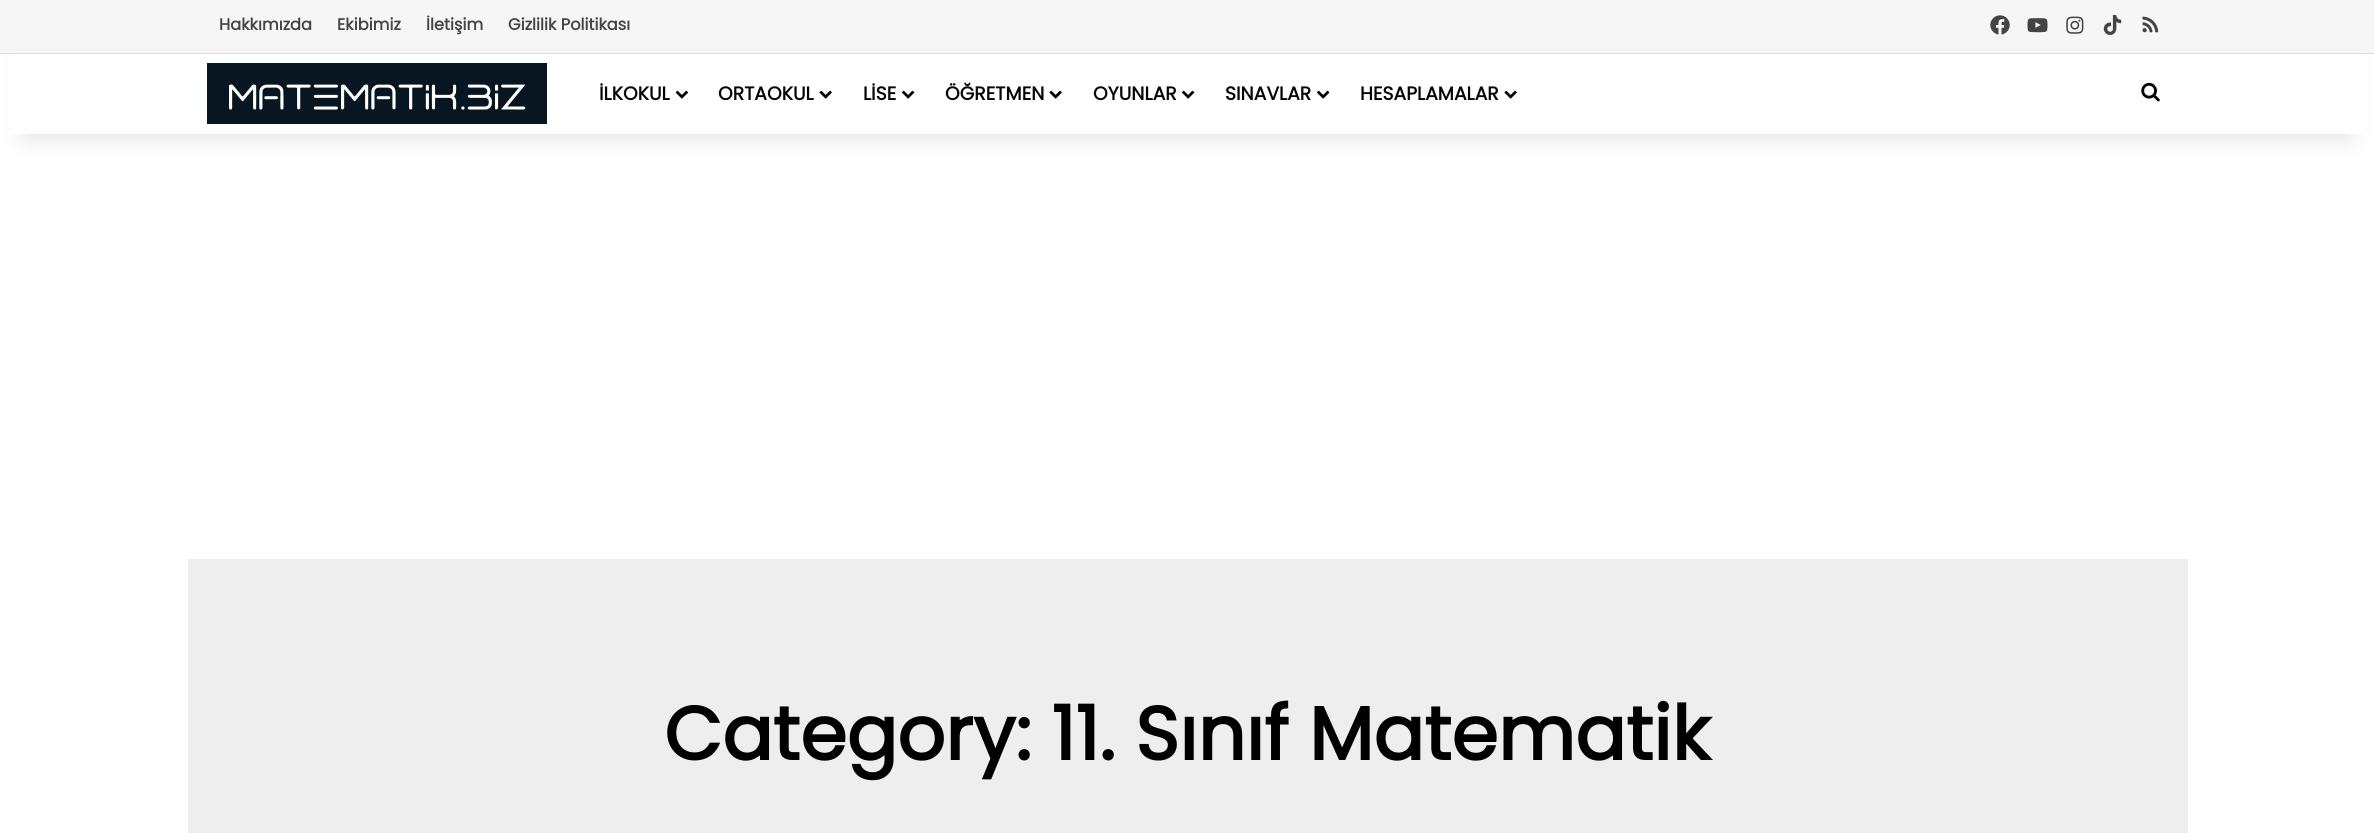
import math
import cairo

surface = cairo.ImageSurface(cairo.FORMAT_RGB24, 2374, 833)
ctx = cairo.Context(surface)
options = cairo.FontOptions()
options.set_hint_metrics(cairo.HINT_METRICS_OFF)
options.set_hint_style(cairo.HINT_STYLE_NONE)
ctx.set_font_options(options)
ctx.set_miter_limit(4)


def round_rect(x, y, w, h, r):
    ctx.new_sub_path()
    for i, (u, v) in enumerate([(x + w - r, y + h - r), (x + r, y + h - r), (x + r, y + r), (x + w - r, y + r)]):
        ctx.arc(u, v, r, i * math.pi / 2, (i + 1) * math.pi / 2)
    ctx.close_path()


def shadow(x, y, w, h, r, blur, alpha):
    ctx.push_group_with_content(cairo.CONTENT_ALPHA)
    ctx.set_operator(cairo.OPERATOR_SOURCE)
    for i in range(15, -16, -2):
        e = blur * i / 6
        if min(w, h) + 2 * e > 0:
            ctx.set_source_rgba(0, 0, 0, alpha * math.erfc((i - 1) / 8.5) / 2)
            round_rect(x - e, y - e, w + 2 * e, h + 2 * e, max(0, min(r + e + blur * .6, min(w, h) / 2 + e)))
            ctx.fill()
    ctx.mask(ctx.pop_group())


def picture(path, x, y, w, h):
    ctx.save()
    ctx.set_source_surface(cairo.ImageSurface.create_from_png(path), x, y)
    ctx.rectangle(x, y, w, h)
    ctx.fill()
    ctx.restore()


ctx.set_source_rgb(1, 1, 1)
ctx.paint()
ctx.set_source_rgb(0, 0, 0)
shadow(25, 56, 2325, 84, 0, 12.5, 0.1)
ctx.set_source_rgb(1, 1, 1)
ctx.rectangle(9, 54, 2357, 80)
ctx.fill()
ctx.set_source_rgb(0.961, 0.961, 0.961)
ctx.rectangle(0, 0, 2374, 53)
ctx.fill()
ctx.set_source_rgb(0.867, 0.867, 0.867)
ctx.rectangle(0, 53, 2374, 1)
ctx.fill()
ctx.select_font_face("Poppins", cairo.FONT_SLANT_NORMAL, cairo.FONT_WEIGHT_BOLD)
ctx.set_font_size(16.25)
ctx.set_source_rgb(0.267, 0.267, 0.267)
ctx.move_to(219, 30)
ctx.show_text("Hakkımızda")
ctx.move_to(337, 30)
ctx.show_text("Ekibimiz")
ctx.move_to(426, 30)
ctx.show_text("İletişim")
ctx.move_to(508, 30)
ctx.show_text("Gizlilik Politikası")
picture("img1.png", 1990, 15, 20, 20)
picture("img2.png", 2027, 18, 21, 15)
picture("img3.png", 2066, 16, 18, 18)
picture("img4.png", 2103, 15, 19, 20)
picture("img5.png", 2142, 16, 17, 17)
picture("img6.png", 207, 63, 340, 61)
ctx.set_font_size(18.75)
ctx.set_source_rgb(0.039, 0.016, 0.02)
ctx.move_to(599, 100)
ctx.show_text("İLKOKUL")
picture("img7.png", 675, 90, 13, 9)
ctx.move_to(718, 100)
ctx.show_text("ORTAOKUL")
picture("img8.png", 819, 90, 13, 9)
ctx.move_to(863, 100)
ctx.show_text("LİSE")
picture("img9.png", 902, 90, 13, 9)
ctx.move_to(945, 100)
ctx.show_text("ÖĞRETMEN")
picture("img8.png", 1049, 90, 13, 9)
ctx.move_to(1093, 100)
ctx.show_text("OYUNLAR")
picture("img9.png", 1182, 90, 13, 9)
ctx.move_to(1225, 100)
ctx.show_text("SINAVLAR")
picture("img9.png", 1317, 90, 13, 9)
ctx.move_to(1360, 100)
ctx.show_text("HESAPLAMALAR")
picture("img8.png", 1504, 90, 13, 9)
picture("img10.png", 2141, 82, 19, 20)
ctx.set_source_rgb(0.933, 0.933, 0.933)
ctx.rectangle(188, 559, 2000, 274)
ctx.fill()
ctx.set_font_size(75)
ctx.set_source_rgb(0, 0, 0)
ctx.move_to(664, 760)
ctx.show_text("Category: 11. Sınıf Matematik")
surface.write_to_png("page.png")
